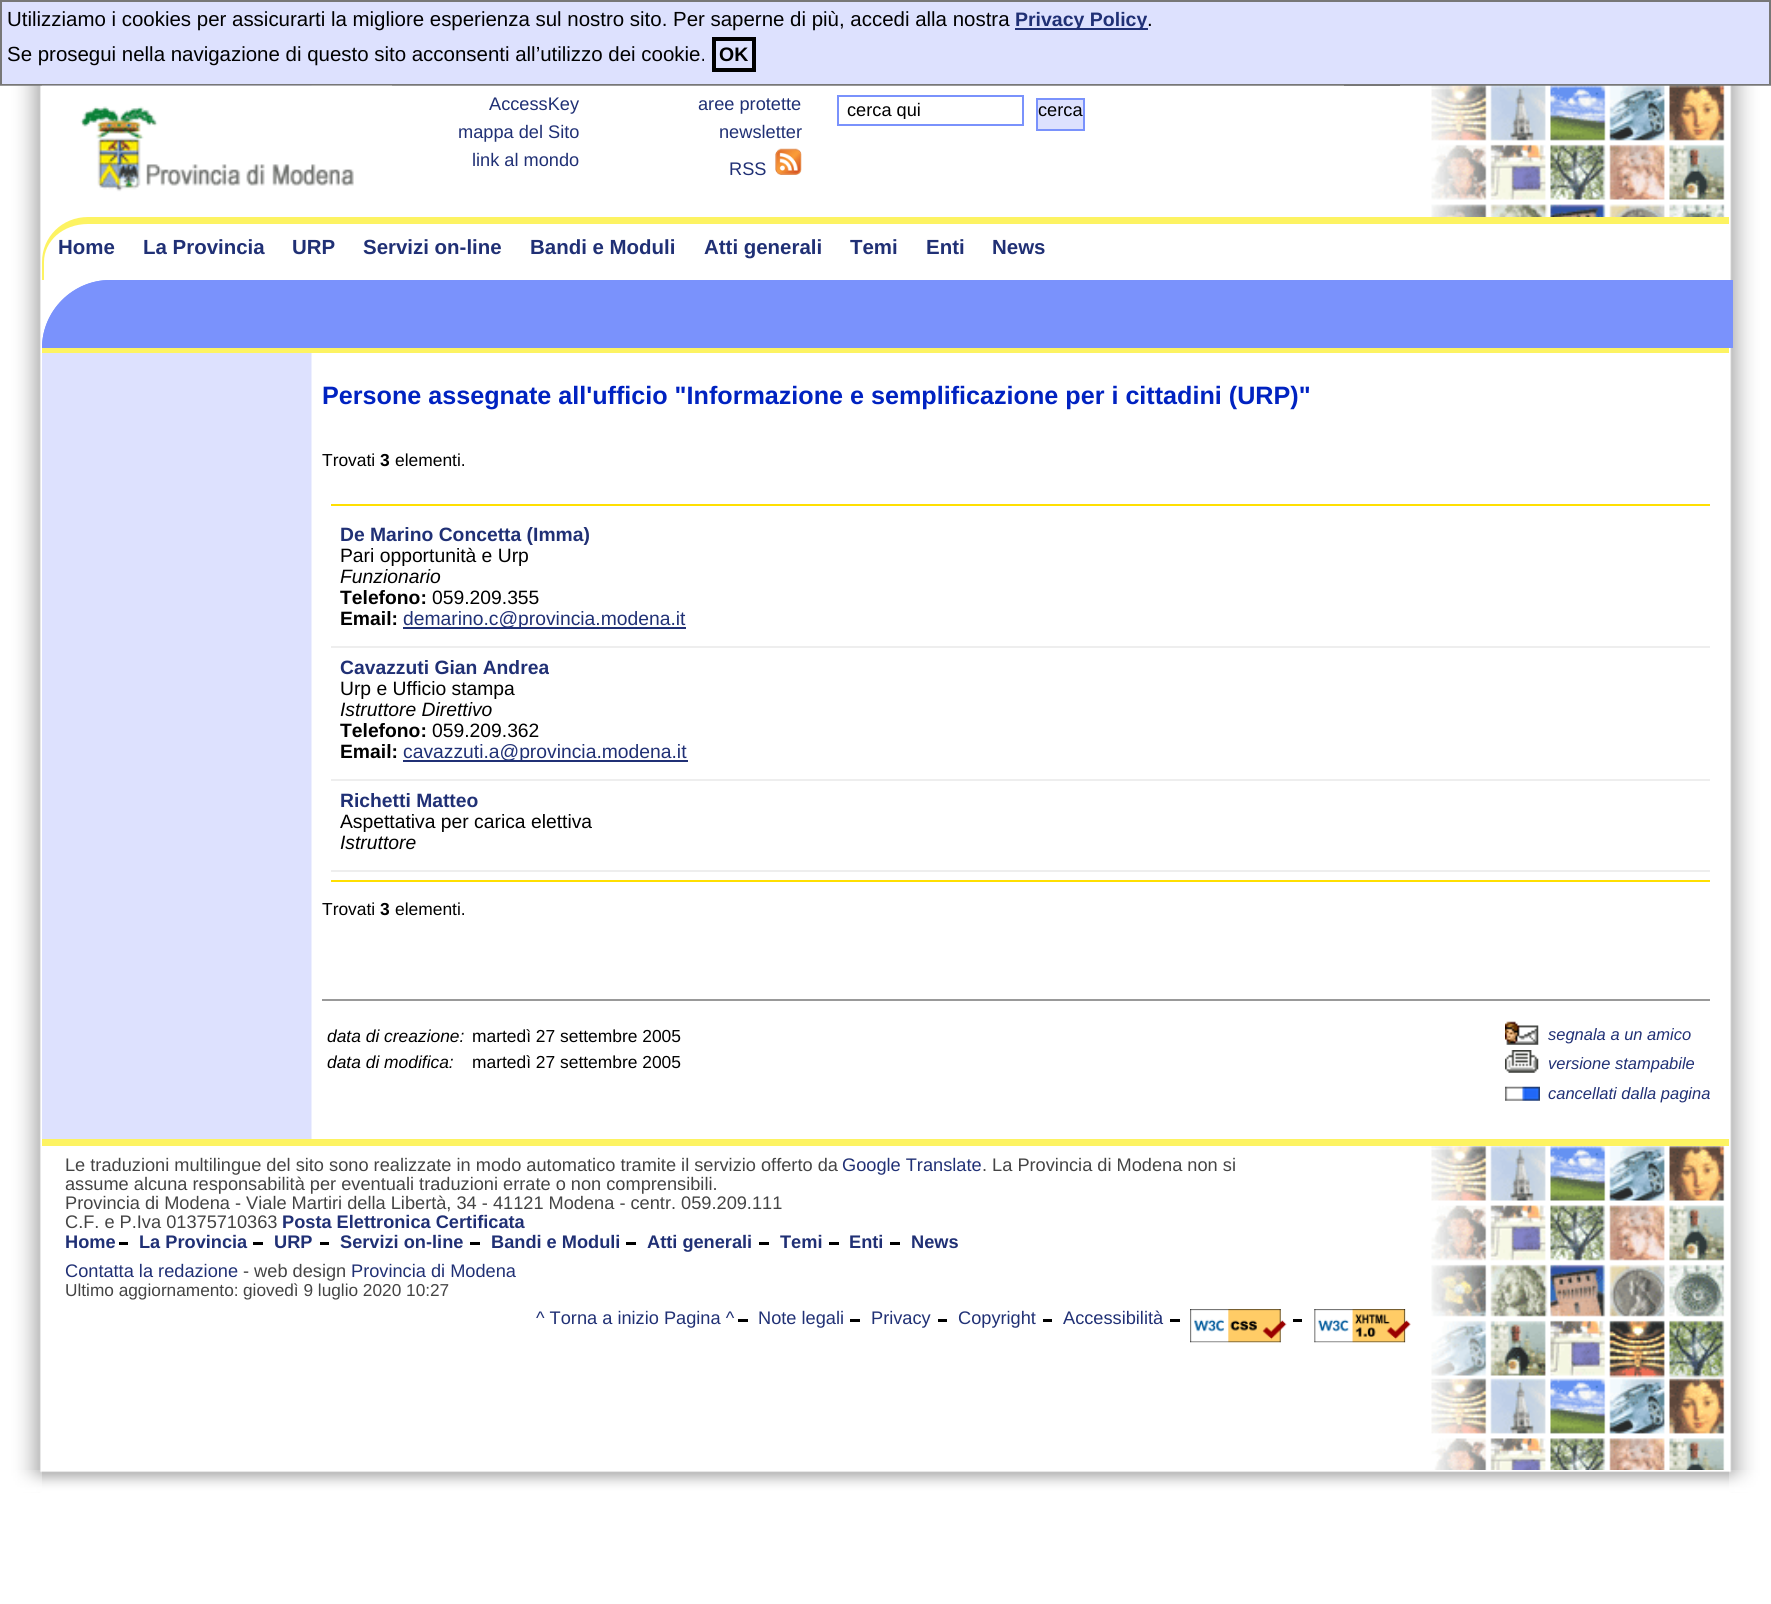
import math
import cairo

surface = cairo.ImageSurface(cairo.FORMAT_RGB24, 1771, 1604)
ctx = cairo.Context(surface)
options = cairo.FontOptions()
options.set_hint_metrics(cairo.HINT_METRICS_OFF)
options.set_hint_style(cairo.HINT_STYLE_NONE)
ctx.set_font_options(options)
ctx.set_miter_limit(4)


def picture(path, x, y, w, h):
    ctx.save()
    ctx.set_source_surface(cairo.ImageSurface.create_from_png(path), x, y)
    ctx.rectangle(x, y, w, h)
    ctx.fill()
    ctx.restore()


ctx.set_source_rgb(1, 1, 1)
ctx.paint()
ctx.set_source_rgb(0.867, 0.882, 0.996)
ctx.rectangle(1, 1, 1769, 84)
ctx.fill_preserve()
ctx.set_source_rgb(0.467, 0.467, 0.467)
ctx.stroke()
ctx.select_font_face("Liberation Sans")
ctx.set_font_size(20.45)
ctx.set_source_rgb(0, 0, 0)
ctx.move_to(7, 26)
ctx.show_text("Utilizziamo i cookies per assicurarti la migliore esperienza sul nostro sito. Per saperne di più, accedi alla nostra")
ctx.set_source_rgb(0.125, 0.188, 0.459)
ctx.rectangle(1015, 28, 133, 2)
ctx.fill()
ctx.select_font_face("Liberation Sans", cairo.FONT_SLANT_NORMAL, cairo.FONT_WEIGHT_BOLD)
ctx.set_font_size(19.5)
ctx.move_to(1015, 26)
ctx.show_text("Privacy Policy")
ctx.select_font_face("Liberation Sans")
ctx.set_font_size(20.45)
ctx.set_source_rgb(0, 0, 0)
ctx.move_to(1147, 26)
ctx.show_text(".")
ctx.move_to(7, 61)
ctx.show_text("Se prosegui nella navigazione di questo sito acconsenti all’utilizzo dei cookie.")
ctx.rectangle(714, 39, 40, 31)
ctx.set_line_width(4)
ctx.stroke()
ctx.select_font_face("Liberation Sans", cairo.FONT_SLANT_NORMAL, cairo.FONT_WEIGHT_BOLD)
ctx.set_font_size(19.5)
ctx.move_to(719, 61)
ctx.show_text("OK")
picture("img1.png", 0, 85, 42, 1408)
picture("img2.png", 1729, 85, 42, 1408)
picture("img3.png", 42, 85, 1302, 1054)
ctx.set_source_rgb(1, 1, 1)
ctx.rectangle(42, 86, 270, 176)
ctx.fill()
picture("img4.png", 1400, 85, 329, 132)
picture("img5.png", 42, 85, 350, 107)
ctx.select_font_face("Liberation Sans")
ctx.set_font_size(18.2)
ctx.set_source_rgb(0.125, 0.188, 0.459)
ctx.move_to(489, 110)
ctx.show_text("AccessKey")
ctx.move_to(458, 138)
ctx.show_text("mappa del Sito")
ctx.move_to(472, 166)
ctx.show_text("link al mondo")
ctx.move_to(698, 110)
ctx.show_text("aree protette")
ctx.move_to(719, 138)
ctx.show_text("newsletter")
ctx.move_to(729, 175)
ctx.show_text("RSS")
picture("img6.png", 775, 148, 27, 27)
ctx.rectangle(838, 96, 185, 29)
ctx.set_source_rgb(0.478, 0.573, 0.988)
ctx.set_line_width(2)
ctx.stroke()
ctx.save()
ctx.rectangle(847, 100, 175, 19)
ctx.clip()
ctx.set_source_rgb(0, 0, 0)
ctx.move_to(847, 116)
ctx.show_text("cerca qui")
ctx.restore()
ctx.set_source_rgb(0.867, 0.882, 0.996)
ctx.rectangle(1037, 99, 47, 31)
ctx.fill_preserve()
ctx.set_source_rgb(0.478, 0.573, 0.988)
ctx.stroke()
ctx.set_source_rgb(0, 0, 0)
ctx.move_to(1038, 116)
ctx.show_text("cerca")
ctx.set_source_rgb(1, 1, 1)
ctx.new_path()
ctx.move_to(88, 217)
ctx.line_to(1729, 217)
ctx.line_to(1729, 280)
ctx.line_to(42, 280)
ctx.line_to(42, 263)
ctx.curve_to(42, 237.5, 62.5, 217, 88, 217)
ctx.close_path()
ctx.fill()
ctx.set_source_rgb(0.992, 0.953, 0.384)
ctx.set_fill_rule(cairo.FILL_RULE_EVEN_ODD)
ctx.new_path()
ctx.move_to(88, 217)
ctx.line_to(1729, 217)
ctx.line_to(1729, 280)
ctx.line_to(42, 280)
ctx.line_to(42, 262)
ctx.curve_to(42, 237, 62, 217, 88, 217)
ctx.close_path()
ctx.move_to(88, 224)
ctx.line_to(1729, 224)
ctx.line_to(1729, 280)
ctx.line_to(44, 280)
ctx.line_to(44, 262)
ctx.curve_to(44, 241, 63, 224, 88, 224)
ctx.close_path()
ctx.fill()
ctx.select_font_face("Liberation Sans", cairo.FONT_SLANT_NORMAL, cairo.FONT_WEIGHT_BOLD)
ctx.set_font_size(20.45)
ctx.set_source_rgb(0.125, 0.188, 0.459)
ctx.move_to(58, 254)
ctx.show_text("Home")
ctx.move_to(143, 254)
ctx.show_text("La Provincia")
ctx.move_to(292, 254)
ctx.show_text("URP")
ctx.move_to(363, 254)
ctx.show_text("Servizi on-line")
ctx.move_to(530, 254)
ctx.show_text("Bandi e Moduli")
ctx.move_to(704, 254)
ctx.show_text("Atti generali")
ctx.move_to(850, 254)
ctx.show_text("Temi")
ctx.move_to(926, 254)
ctx.show_text("Enti")
ctx.move_to(992, 254)
ctx.show_text("News")
ctx.set_source_rgb(1, 1, 1)
ctx.rectangle(42, 280, 67, 68)
ctx.fill()
ctx.set_source_rgb(0.478, 0.573, 0.988)
ctx.new_path()
ctx.move_to(110, 280)
ctx.line_to(1733, 280)
ctx.line_to(1733, 348)
ctx.line_to(42, 348)
ctx.curve_to(42, 310.5, 72.5, 280, 110, 280)
ctx.close_path()
ctx.fill()
ctx.new_path()
ctx.move_to(110, 280)
ctx.line_to(1732, 280)
ctx.line_to(1732, 348)
ctx.line_to(42, 348)
ctx.curve_to(42, 311, 73, 280, 110, 280)
ctx.close_path()
ctx.move_to(110, 284)
ctx.line_to(1732, 284)
ctx.line_to(1732, 348)
ctx.line_to(46, 348)
ctx.curve_to(46, 312, 74, 284, 110, 284)
ctx.close_path()
ctx.fill()
ctx.set_source_rgb(0.992, 0.953, 0.384)
ctx.rectangle(42, 348, 1687, 5)
ctx.fill()
ctx.set_font_size(25.15)
ctx.set_source_rgb(0, 0.133, 0.757)
ctx.move_to(322, 404)
ctx.show_text("Persone assegnate all'ufficio \"Informazione e semplificazione per i cittadini (URP)\"")
ctx.select_font_face("Liberation Sans")
ctx.set_font_size(17.4)
ctx.set_source_rgb(0, 0, 0)
ctx.move_to(322, 466)
ctx.show_text("Trovati")
ctx.select_font_face("Liberation Sans", cairo.FONT_SLANT_NORMAL, cairo.FONT_WEIGHT_BOLD)
ctx.move_to(380, 466)
ctx.show_text("3")
ctx.select_font_face("Liberation Sans")
ctx.move_to(395, 466)
ctx.show_text("elementi.")
ctx.set_source_rgb(1, 0.875, 0.004)
ctx.rectangle(331, 504, 1379, 2)
ctx.fill()
ctx.rectangle(331, 880, 1379, 2)
ctx.fill()
ctx.set_source_rgb(0.933, 0.933, 0.933)
ctx.rectangle(331, 646, 1379, 2)
ctx.fill()
ctx.select_font_face("Liberation Sans", cairo.FONT_SLANT_NORMAL, cairo.FONT_WEIGHT_BOLD)
ctx.set_font_size(19.3)
ctx.set_source_rgb(0.125, 0.188, 0.459)
ctx.move_to(340, 541)
ctx.show_text("De Marino Concetta (Imma)")
ctx.select_font_face("Liberation Sans")
ctx.set_source_rgb(0, 0, 0)
ctx.move_to(340, 562)
ctx.show_text("Pari opportunità e Urp")
ctx.select_font_face("Liberation Sans", cairo.FONT_SLANT_ITALIC)
ctx.move_to(340, 583)
ctx.show_text("Funzionario")
ctx.select_font_face("Liberation Sans", cairo.FONT_SLANT_NORMAL, cairo.FONT_WEIGHT_BOLD)
ctx.move_to(340, 604)
ctx.show_text("Telefono:")
ctx.select_font_face("Liberation Sans")
ctx.move_to(432, 604)
ctx.show_text("059.209.355")
ctx.select_font_face("Liberation Sans", cairo.FONT_SLANT_NORMAL, cairo.FONT_WEIGHT_BOLD)
ctx.move_to(340, 625)
ctx.show_text("Email:")
ctx.set_source_rgb(0.125, 0.188, 0.459)
ctx.rectangle(403, 627, 283, 2)
ctx.fill()
ctx.select_font_face("Liberation Sans")
ctx.move_to(403, 625)
ctx.show_text("demarino.c@provincia.modena.it")
ctx.set_source_rgb(0.933, 0.933, 0.933)
ctx.rectangle(331, 779, 1379, 2)
ctx.fill()
ctx.select_font_face("Liberation Sans", cairo.FONT_SLANT_NORMAL, cairo.FONT_WEIGHT_BOLD)
ctx.set_source_rgb(0.125, 0.188, 0.459)
ctx.move_to(340, 674)
ctx.show_text("Cavazzuti Gian Andrea")
ctx.select_font_face("Liberation Sans")
ctx.set_source_rgb(0, 0, 0)
ctx.move_to(340, 695)
ctx.show_text("Urp e Ufficio stampa")
ctx.select_font_face("Liberation Sans", cairo.FONT_SLANT_ITALIC)
ctx.move_to(340, 716)
ctx.show_text("Istruttore Direttivo")
ctx.select_font_face("Liberation Sans", cairo.FONT_SLANT_NORMAL, cairo.FONT_WEIGHT_BOLD)
ctx.move_to(340, 737)
ctx.show_text("Telefono:")
ctx.select_font_face("Liberation Sans")
ctx.move_to(432, 737)
ctx.show_text("059.209.362")
ctx.select_font_face("Liberation Sans", cairo.FONT_SLANT_NORMAL, cairo.FONT_WEIGHT_BOLD)
ctx.move_to(340, 758)
ctx.show_text("Email:")
ctx.set_source_rgb(0.125, 0.188, 0.459)
ctx.rectangle(403, 760, 285, 2)
ctx.fill()
ctx.select_font_face("Liberation Sans")
ctx.move_to(403, 758)
ctx.show_text("cavazzuti.a@provincia.modena.it")
ctx.set_source_rgb(0.933, 0.933, 0.933)
ctx.rectangle(331, 870, 1379, 2)
ctx.fill()
ctx.select_font_face("Liberation Sans", cairo.FONT_SLANT_NORMAL, cairo.FONT_WEIGHT_BOLD)
ctx.set_source_rgb(0.125, 0.188, 0.459)
ctx.move_to(340, 807)
ctx.show_text("Richetti Matteo")
ctx.select_font_face("Liberation Sans")
ctx.set_source_rgb(0, 0, 0)
ctx.move_to(340, 828)
ctx.show_text("Aspettativa per carica elettiva")
ctx.select_font_face("Liberation Sans", cairo.FONT_SLANT_ITALIC)
ctx.move_to(340, 849)
ctx.show_text("Istruttore")
ctx.select_font_face("Liberation Sans")
ctx.set_font_size(17.4)
ctx.move_to(322, 915)
ctx.show_text("Trovati")
ctx.select_font_face("Liberation Sans", cairo.FONT_SLANT_NORMAL, cairo.FONT_WEIGHT_BOLD)
ctx.move_to(380, 915)
ctx.show_text("3")
ctx.select_font_face("Liberation Sans")
ctx.move_to(395, 915)
ctx.show_text("elementi.")
ctx.set_source_rgb(0.6, 0.6, 0.6)
ctx.rectangle(322, 999, 1388, 2)
ctx.fill()
ctx.select_font_face("Liberation Sans", cairo.FONT_SLANT_ITALIC)
ctx.set_source_rgb(0, 0, 0)
ctx.move_to(327, 1042)
ctx.show_text("data di creazione:")
ctx.select_font_face("Liberation Sans")
ctx.move_to(472, 1042)
ctx.show_text("martedì 27 settembre 2005")
ctx.select_font_face("Liberation Sans", cairo.FONT_SLANT_ITALIC)
ctx.move_to(327, 1068)
ctx.show_text("data di modifica:")
ctx.select_font_face("Liberation Sans")
ctx.move_to(472, 1068)
ctx.show_text("martedì 27 settembre 2005")
picture("img7.png", 1505, 1021, 34, 24)
ctx.select_font_face("Liberation Sans", cairo.FONT_SLANT_ITALIC)
ctx.set_font_size(16.5)
ctx.set_source_rgb(0.125, 0.188, 0.459)
ctx.move_to(1548, 1040)
ctx.show_text("segnala a un amico")
picture("img8.png", 1505, 1050, 34, 23)
ctx.move_to(1548, 1069)
ctx.show_text("versione stampabile")
picture("img9.png", 1505, 1086, 35, 15)
ctx.move_to(1548, 1099)
ctx.show_text("cancellati dalla pagina")
picture("img10.png", 1431, 1146, 294, 324)
ctx.set_source_rgb(0.992, 0.953, 0.384)
ctx.rectangle(42, 1139, 1687, 7)
ctx.fill()
ctx.select_font_face("Liberation Sans")
ctx.set_font_size(18.2)
ctx.set_source_rgb(0.267, 0.267, 0.267)
ctx.move_to(65, 1171)
ctx.show_text("Le traduzioni multilingue del sito sono realizzate in modo automatico tramite il servizio offerto da")
ctx.set_source_rgb(0.125, 0.188, 0.459)
ctx.move_to(842, 1171)
ctx.show_text("Google Translate")
ctx.set_source_rgb(0.267, 0.267, 0.267)
ctx.move_to(982, 1171)
ctx.show_text(". La Provincia di Modena non si")
ctx.move_to(65, 1190)
ctx.show_text("assume alcuna responsabilità per eventuali traduzioni errate o non comprensibili.")
ctx.move_to(65, 1209)
ctx.show_text("Provincia di Modena - Viale Martiri della Libertà, 34 - 41121 Modena - centr. 059.209.111")
ctx.move_to(65, 1228)
ctx.show_text("C.F. e P.Iva 01375710363")
ctx.select_font_face("Liberation Sans", cairo.FONT_SLANT_NORMAL, cairo.FONT_WEIGHT_BOLD)
ctx.set_source_rgb(0.125, 0.188, 0.459)
ctx.move_to(282, 1228)
ctx.show_text("Posta Elettronica Certificata")
ctx.move_to(65, 1248)
ctx.show_text("Home")
ctx.set_source_rgb(0, 0, 0)
ctx.rectangle(119, 1242, 9, 3)
ctx.fill()
ctx.set_source_rgb(0.125, 0.188, 0.459)
ctx.move_to(139, 1248)
ctx.show_text("La Provincia")
ctx.set_source_rgb(0, 0, 0)
ctx.rectangle(253, 1242, 10, 3)
ctx.fill()
ctx.set_source_rgb(0.125, 0.188, 0.459)
ctx.move_to(274, 1248)
ctx.show_text("URP")
ctx.set_source_rgb(0, 0, 0)
ctx.rectangle(320, 1242, 9, 3)
ctx.fill()
ctx.set_source_rgb(0.125, 0.188, 0.459)
ctx.move_to(340, 1248)
ctx.show_text("Servizi on-line")
ctx.set_source_rgb(0, 0, 0)
ctx.rectangle(470, 1242, 10, 3)
ctx.fill()
ctx.set_source_rgb(0.125, 0.188, 0.459)
ctx.move_to(491, 1248)
ctx.show_text("Bandi e Moduli")
ctx.set_source_rgb(0, 0, 0)
ctx.rectangle(626, 1242, 10, 3)
ctx.fill()
ctx.set_source_rgb(0.125, 0.188, 0.459)
ctx.move_to(647, 1248)
ctx.show_text("Atti generali")
ctx.set_source_rgb(0, 0, 0)
ctx.rectangle(759, 1242, 10, 3)
ctx.fill()
ctx.set_source_rgb(0.125, 0.188, 0.459)
ctx.move_to(780, 1248)
ctx.show_text("Temi")
ctx.set_source_rgb(0, 0, 0)
ctx.rectangle(829, 1242, 10, 3)
ctx.fill()
ctx.set_source_rgb(0.125, 0.188, 0.459)
ctx.move_to(849, 1248)
ctx.show_text("Enti")
ctx.set_source_rgb(0, 0, 0)
ctx.rectangle(890, 1242, 10, 3)
ctx.fill()
ctx.set_source_rgb(0.125, 0.188, 0.459)
ctx.move_to(911, 1248)
ctx.show_text("News")
ctx.select_font_face("Liberation Sans")
ctx.move_to(65, 1277)
ctx.show_text("Contatta la redazione")
ctx.set_source_rgb(0.267, 0.267, 0.267)
ctx.move_to(243, 1277)
ctx.show_text("- web design")
ctx.set_source_rgb(0.125, 0.188, 0.459)
ctx.move_to(351, 1277)
ctx.show_text("Provincia di Modena")
ctx.set_font_size(17.25)
ctx.set_source_rgb(0.267, 0.267, 0.267)
ctx.move_to(65, 1296)
ctx.show_text("Ultimo aggiornamento:")
ctx.move_to(243, 1296)
ctx.show_text("giovedì 9 luglio 2020 10:27")
ctx.set_font_size(18.2)
ctx.set_source_rgb(0.125, 0.188, 0.459)
ctx.move_to(536, 1324)
ctx.show_text("^ Torna a inizio Pagina ^")
ctx.set_source_rgb(0, 0, 0)
ctx.rectangle(738, 1319, 10, 3)
ctx.fill()
ctx.set_source_rgb(0.125, 0.188, 0.459)
ctx.move_to(758, 1324)
ctx.show_text("Note legali")
ctx.set_source_rgb(0, 0, 0)
ctx.rectangle(850, 1319, 10, 3)
ctx.fill()
ctx.set_source_rgb(0.125, 0.188, 0.459)
ctx.move_to(871, 1324)
ctx.show_text("Privacy")
ctx.set_source_rgb(0, 0, 0)
ctx.rectangle(938, 1319, 9, 3)
ctx.fill()
ctx.set_source_rgb(0.125, 0.188, 0.459)
ctx.move_to(958, 1324)
ctx.show_text("Copyright")
ctx.set_source_rgb(0, 0, 0)
ctx.rectangle(1043, 1319, 9, 3)
ctx.fill()
ctx.set_source_rgb(0.125, 0.188, 0.459)
ctx.move_to(1063, 1324)
ctx.show_text("Accessibilità")
ctx.set_source_rgb(0, 0, 0)
ctx.rectangle(1170, 1319, 10, 3)
ctx.fill()
picture("img11.png", 1190, 1309, 97, 34)
ctx.rectangle(1293, 1319, 9, 3)
ctx.fill()
picture("img12.png", 1314, 1309, 97, 34)
picture("img13.png", 0, 1470, 1771, 23)
picture("img14.png", 0, 1470, 42, 23)
picture("img15.png", 1729, 1470, 42, 23)
surface.write_to_png("page.png")
